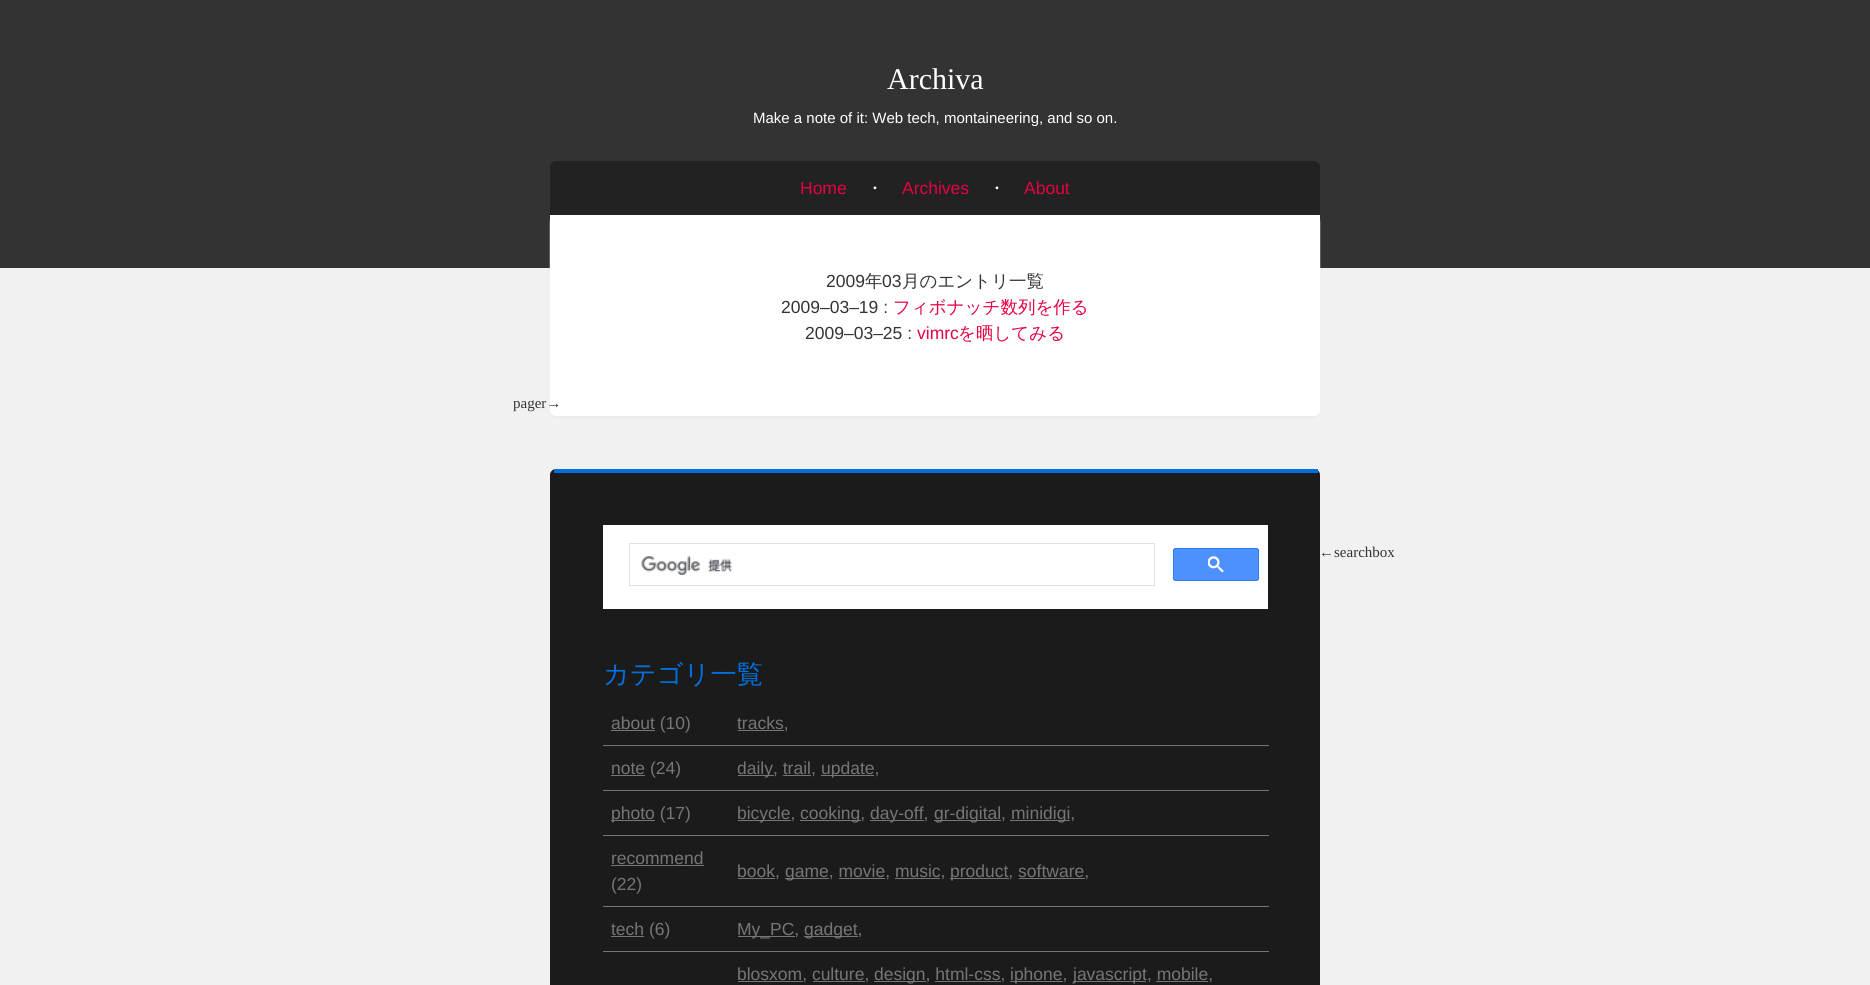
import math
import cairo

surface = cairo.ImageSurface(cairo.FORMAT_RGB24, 1870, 985)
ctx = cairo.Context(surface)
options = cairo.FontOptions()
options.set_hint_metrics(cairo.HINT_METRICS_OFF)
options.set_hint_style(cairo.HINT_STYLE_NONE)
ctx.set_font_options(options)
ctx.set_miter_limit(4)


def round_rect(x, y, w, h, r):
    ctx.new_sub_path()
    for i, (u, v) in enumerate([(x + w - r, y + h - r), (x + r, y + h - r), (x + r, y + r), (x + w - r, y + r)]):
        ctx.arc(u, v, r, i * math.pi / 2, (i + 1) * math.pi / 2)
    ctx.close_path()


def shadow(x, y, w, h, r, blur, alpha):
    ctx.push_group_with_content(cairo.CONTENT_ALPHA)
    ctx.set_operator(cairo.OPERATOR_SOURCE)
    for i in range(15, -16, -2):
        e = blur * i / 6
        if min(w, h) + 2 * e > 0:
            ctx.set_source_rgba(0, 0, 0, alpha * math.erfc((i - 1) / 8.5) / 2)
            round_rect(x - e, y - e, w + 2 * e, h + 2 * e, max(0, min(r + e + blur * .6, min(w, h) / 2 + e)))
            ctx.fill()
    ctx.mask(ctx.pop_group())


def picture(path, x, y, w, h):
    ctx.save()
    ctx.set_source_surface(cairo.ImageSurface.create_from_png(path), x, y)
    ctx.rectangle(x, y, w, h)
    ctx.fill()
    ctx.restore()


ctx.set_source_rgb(0.945, 0.945, 0.945)
ctx.paint()
ctx.set_source_rgb(0.2, 0.2, 0.2)
ctx.rectangle(0, 0, 1870, 268)
ctx.fill()
ctx.select_font_face("Liberation Serif")
ctx.set_font_size(30)
ctx.set_source_rgb(1, 1, 1)
ctx.move_to(887, 89)
ctx.show_text("Archiva")
ctx.select_font_face("Liberation Sans")
ctx.set_font_size(15)
ctx.move_to(753, 123)
ctx.show_text("Make a note of it: Web tech, montaineering, and so on.")
ctx.set_source_rgb(0.133, 0.133, 0.133)
ctx.new_path()
ctx.move_to(556, 161)
ctx.line_to(1314, 161)
ctx.curve_to(1317.5, 161, 1320, 163.5, 1320, 167)
ctx.line_to(1320, 215)
ctx.line_to(550, 215)
ctx.line_to(550, 167)
ctx.curve_to(550, 163.5, 552.5, 161, 556, 161)
ctx.close_path()
ctx.fill()
ctx.set_font_size(17.5)
ctx.set_source_rgb(0.902, 0, 0.259)
ctx.move_to(800, 194)
ctx.show_text("Home")
ctx.select_font_face("WenQuanYi Zen Hei Medium")
ctx.set_source_rgb(1, 1, 1)
ctx.move_to(866, 194)
ctx.show_text("・")
ctx.select_font_face("Liberation Sans")
ctx.set_source_rgb(0.902, 0, 0.259)
ctx.move_to(902, 194)
ctx.show_text("Archives")
ctx.select_font_face("WenQuanYi Zen Hei Medium")
ctx.set_source_rgb(1, 1, 1)
ctx.move_to(988, 194)
ctx.show_text("・")
ctx.select_font_face("Liberation Sans")
ctx.set_source_rgb(0.902, 0, 0.259)
ctx.move_to(1024, 194)
ctx.show_text("About")
ctx.set_source_rgb(0.925, 0.925, 0.925)
shadow(550, 216, 770, 202, 6, 0.5, 1)
ctx.set_source_rgb(1, 1, 1)
ctx.new_path()
ctx.move_to(550, 215)
ctx.line_to(1320, 215)
ctx.line_to(1320, 410)
ctx.curve_to(1320, 413.5, 1317.5, 416, 1314, 416)
ctx.line_to(556, 416)
ctx.curve_to(552.5, 416, 550, 413.5, 550, 410)
ctx.close_path()
ctx.fill()
ctx.set_source_rgb(0.2, 0.2, 0.2)
ctx.move_to(826, 287)
ctx.show_text("2009")
ctx.select_font_face("WenQuanYi Zen Hei Medium")
ctx.move_to(865, 287)
ctx.show_text("年")
ctx.select_font_face("Liberation Sans")
ctx.move_to(882, 287)
ctx.show_text("03")
ctx.select_font_face("WenQuanYi Zen Hei Medium")
ctx.move_to(902, 287)
ctx.show_text("月のエントリ一覧")
ctx.select_font_face("Liberation Sans")
ctx.move_to(781, 313)
ctx.show_text("2009–03–19 :")
ctx.select_font_face("WenQuanYi Zen Hei Medium")
ctx.set_source_rgb(0.902, 0, 0.259)
ctx.move_to(893, 313)
ctx.show_text("フィボナッチ数列を作る")
ctx.select_font_face("Liberation Sans")
ctx.set_source_rgb(0.2, 0.2, 0.2)
ctx.move_to(805, 339)
ctx.show_text("2009–03–25 :")
ctx.set_source_rgb(0.902, 0, 0.259)
ctx.move_to(917, 339)
ctx.show_text("vimrc")
ctx.select_font_face("WenQuanYi Zen Hei Medium")
ctx.move_to(958, 339)
ctx.show_text("を晒してみる")
ctx.select_font_face("Liberation Serif")
ctx.set_font_size(15)
ctx.set_source_rgb(0.2, 0.2, 0.2)
ctx.move_to(513, 408)
ctx.show_text("pager→")
ctx.set_source_rgb(0.106, 0.106, 0.106)
round_rect(550, 469, 770, 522, 6)
ctx.fill()
ctx.set_source_rgb(0, 0.439, 0.875)
ctx.rectangle(554, 469, 764, 4)
ctx.fill()
ctx.set_source_rgb(1, 1, 1)
ctx.rectangle(603, 525, 665, 84)
ctx.fill()
ctx.rectangle(629.5, 543.5, 525, 42)
ctx.set_source_rgb(0.875, 0.882, 0.898)
ctx.set_line_width(1)
ctx.stroke()
picture("img1.png", 641, 556, 91, 19)
ctx.set_source_rgb(0.302, 0.565, 0.996)
round_rect(1173.5, 548.5, 85, 32, 2)
ctx.fill_preserve()
ctx.set_source_rgb(0.188, 0.475, 0.929)
ctx.stroke()
picture("img2.png", 1208, 556, 16, 17)
ctx.set_source_rgb(0.2, 0.2, 0.2)
ctx.move_to(1319, 557)
ctx.show_text("←searchbox")
ctx.select_font_face("WenQuanYi Zen Hei Medium")
ctx.set_font_size(26.25)
ctx.set_source_rgb(0, 0.439, 0.875)
ctx.move_to(603, 683)
ctx.show_text("カテゴリ一覧")
ctx.set_source_rgb(0.463, 0.463, 0.463)
ctx.rectangle(611, 730, 44, 1)
ctx.fill()
ctx.select_font_face("Liberation Sans")
ctx.set_font_size(17.5)
ctx.move_to(611, 729)
ctx.show_text("about (10)")
ctx.rectangle(603, 745, 666, 1)
ctx.fill()
ctx.rectangle(738, 730, 46, 1)
ctx.fill()
ctx.move_to(737, 729)
ctx.show_text("tracks,")
ctx.rectangle(611, 775, 34, 1)
ctx.fill()
ctx.move_to(611, 774)
ctx.show_text("note (24)")
ctx.rectangle(603, 790, 666, 1)
ctx.fill()
ctx.rectangle(738, 775, 36, 1)
ctx.fill()
ctx.move_to(737, 774)
ctx.show_text("daily, trail,")
ctx.rectangle(821, 775, 53, 1)
ctx.fill()
ctx.move_to(821, 774)
ctx.show_text("update,")
ctx.rectangle(783, 775, 28, 1)
ctx.fill()
ctx.rectangle(611, 820, 44, 1)
ctx.fill()
ctx.move_to(611, 819)
ctx.show_text("photo (17)")
ctx.rectangle(603, 835, 666, 1)
ctx.fill()
ctx.rectangle(738, 820, 53, 1)
ctx.fill()
ctx.move_to(737, 819)
ctx.show_text("bicycle,")
ctx.rectangle(800, 820, 61, 1)
ctx.fill()
ctx.move_to(800, 819)
ctx.show_text("cooking,")
ctx.rectangle(870, 820, 54, 1)
ctx.fill()
ctx.move_to(870, 819)
ctx.show_text("day-off,")
ctx.rectangle(934, 820, 67, 1)
ctx.fill()
ctx.move_to(934, 819)
ctx.show_text("gr-digital,")
ctx.rectangle(1010, 820, 60, 1)
ctx.fill()
ctx.move_to(1011, 819)
ctx.show_text("minidigi,")
ctx.move_to(611, 864)
ctx.show_text("recommend")
ctx.rectangle(611, 865, 93, 1)
ctx.fill()
ctx.move_to(611, 890)
ctx.show_text("(22)")
ctx.rectangle(603, 906, 666, 1)
ctx.fill()
ctx.rectangle(738, 878, 37, 1)
ctx.fill()
ctx.move_to(737, 877)
ctx.show_text("book,")
ctx.rectangle(785, 878, 44, 1)
ctx.fill()
ctx.move_to(785, 877)
ctx.show_text("game, movie, music,")
ctx.rectangle(950, 878, 59, 1)
ctx.fill()
ctx.move_to(950, 877)
ctx.show_text("product, software,")
ctx.rectangle(839, 878, 46, 1)
ctx.fill()
ctx.rectangle(895, 878, 45, 1)
ctx.fill()
ctx.rectangle(1019, 878, 66, 1)
ctx.fill()
ctx.rectangle(611, 936, 33, 1)
ctx.fill()
ctx.move_to(611, 935)
ctx.show_text("tech (6)")
ctx.rectangle(603, 951, 666, 1)
ctx.fill()
ctx.rectangle(738, 936, 57, 1)
ctx.fill()
ctx.move_to(737, 935)
ctx.show_text("My_PC,")
ctx.rectangle(804, 936, 54, 1)
ctx.fill()
ctx.move_to(804, 935)
ctx.show_text("gadget,")
ctx.rectangle(738, 981, 65, 1)
ctx.fill()
ctx.move_to(737, 980)
ctx.show_text("blosxom, culture,")
ctx.rectangle(874, 981, 52, 1)
ctx.fill()
ctx.move_to(874, 980)
ctx.show_text("design, html-css,")
ctx.rectangle(1010, 981, 53, 1)
ctx.fill()
ctx.move_to(1010, 980)
ctx.show_text("iphone,")
ctx.rectangle(1073, 981, 73, 1)
ctx.fill()
ctx.move_to(1073, 980)
ctx.show_text("javascript, mobile,")
ctx.rectangle(813, 981, 52, 1)
ctx.fill()
ctx.rectangle(935, 981, 66, 1)
ctx.fill()
ctx.rectangle(1156, 981, 52, 1)
ctx.fill()
surface.write_to_png("page.png")
